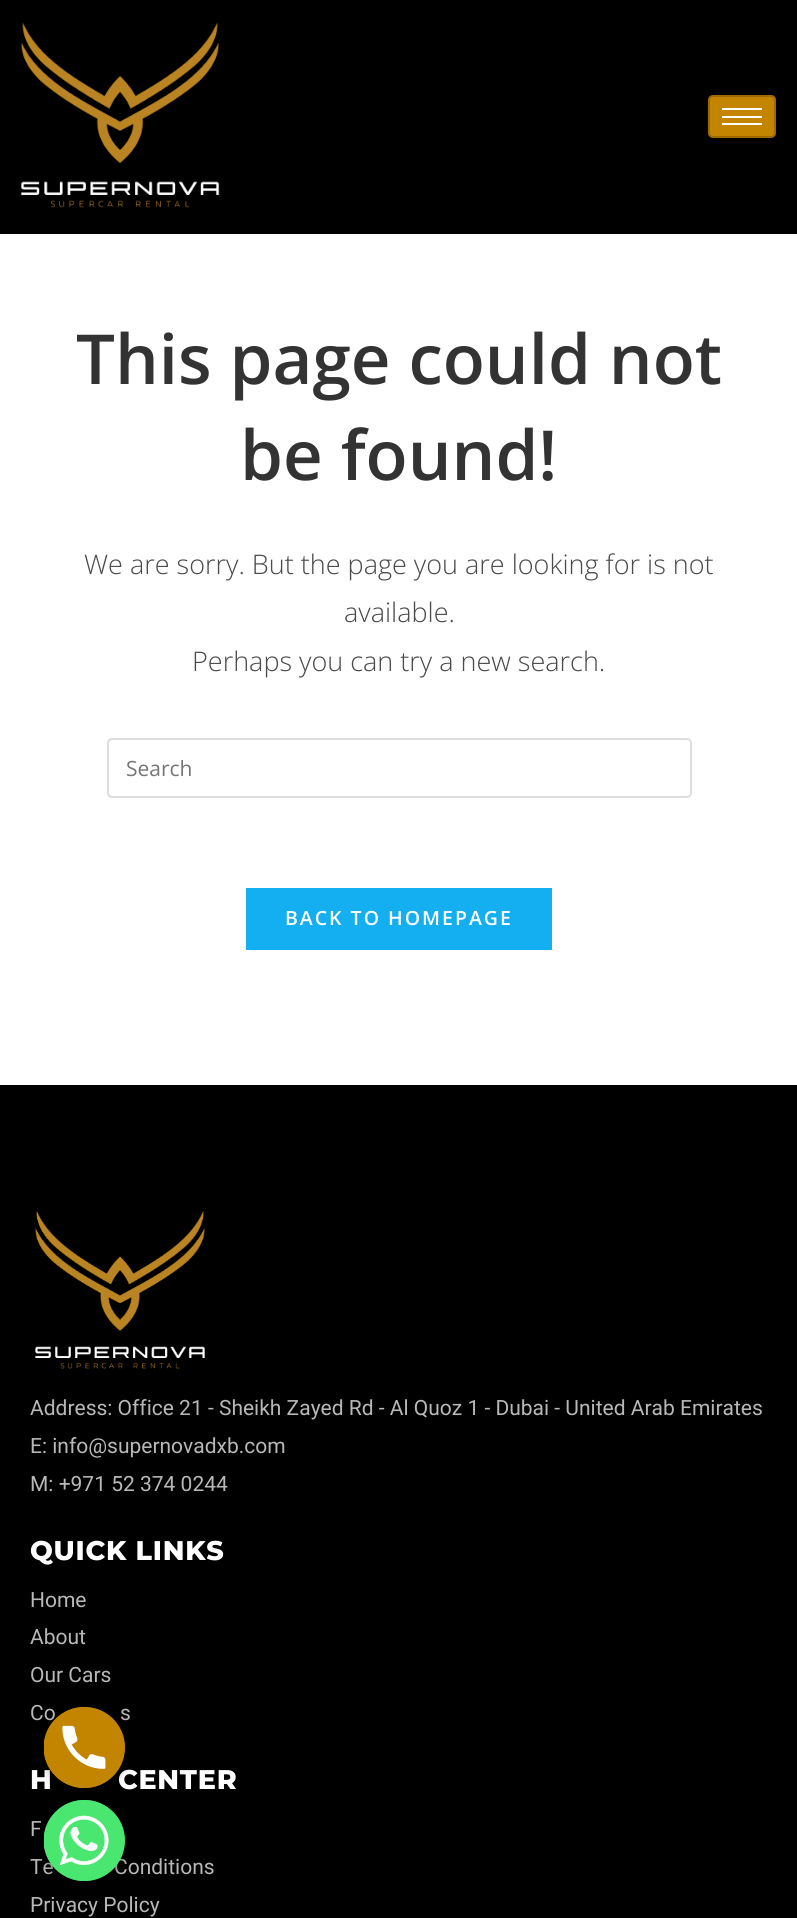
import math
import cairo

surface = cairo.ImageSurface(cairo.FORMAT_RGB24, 797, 1918)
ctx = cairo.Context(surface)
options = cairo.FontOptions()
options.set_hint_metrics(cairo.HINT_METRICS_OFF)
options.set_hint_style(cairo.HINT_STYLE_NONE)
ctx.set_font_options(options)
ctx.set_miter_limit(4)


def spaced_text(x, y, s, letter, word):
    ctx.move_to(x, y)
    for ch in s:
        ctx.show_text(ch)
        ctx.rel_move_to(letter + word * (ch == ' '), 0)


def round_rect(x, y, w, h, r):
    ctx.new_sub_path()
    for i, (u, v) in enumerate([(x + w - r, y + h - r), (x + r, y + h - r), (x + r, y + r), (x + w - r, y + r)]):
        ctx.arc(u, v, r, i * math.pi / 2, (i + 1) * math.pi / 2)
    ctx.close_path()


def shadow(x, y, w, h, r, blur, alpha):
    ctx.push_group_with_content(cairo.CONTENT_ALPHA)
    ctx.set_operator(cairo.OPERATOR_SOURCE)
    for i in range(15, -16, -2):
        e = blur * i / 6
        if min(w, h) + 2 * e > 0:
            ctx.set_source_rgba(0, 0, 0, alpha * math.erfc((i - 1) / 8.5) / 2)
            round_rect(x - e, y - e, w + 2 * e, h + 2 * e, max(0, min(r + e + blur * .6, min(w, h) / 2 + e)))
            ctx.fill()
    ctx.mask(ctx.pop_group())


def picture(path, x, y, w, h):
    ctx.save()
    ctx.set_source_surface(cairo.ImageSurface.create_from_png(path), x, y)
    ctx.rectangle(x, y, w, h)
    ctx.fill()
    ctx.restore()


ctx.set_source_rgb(1, 1, 1)
ctx.paint()
ctx.set_source_rgb(0, 0, 0)
ctx.rectangle(0, 0, 797, 234)
ctx.fill()
picture("img1.png", 20, 22, 200, 186)
ctx.set_source_rgb(0.765, 0.518, 0)
round_rect(708, 95, 68, 43, 5)
ctx.fill()
round_rect(709, 96, 66, 41, 4)
ctx.set_source_rgba(0, 0, 0, 0.2)
ctx.stroke()
ctx.set_source_rgb(1, 1, 1)
ctx.rectangle(722, 108, 40, 2)
ctx.fill()
ctx.rectangle(722, 116, 40, 2)
ctx.fill()
ctx.rectangle(722, 123, 40, 2)
ctx.fill()
ctx.select_font_face("Open Sans SemiBold")
ctx.set_font_size(69)
ctx.set_source_rgb(0.2, 0.2, 0.2)
ctx.move_to(76, 384)
ctx.show_text("This page could not")
ctx.move_to(240, 480)
ctx.show_text("be found!")
ctx.select_font_face("Open Sans Light")
ctx.set_font_size(27)
ctx.set_source_rgb(0.29, 0.29, 0.29)
ctx.move_to(84, 574)
ctx.show_text("We are sorry. But the page you are looking for is not")
ctx.move_to(344, 622)
ctx.show_text("available.")
ctx.move_to(192, 671)
ctx.show_text("Perhaps you can try a new search.")
round_rect(108, 739, 583, 58, 4)
ctx.set_source_rgb(0.867, 0.867, 0.867)
ctx.stroke()
ctx.select_font_face("Open Sans")
ctx.set_font_size(21)
ctx.set_source_rgb(0.459, 0.459, 0.459)
ctx.move_to(126, 776)
ctx.show_text("Search")
ctx.set_source_rgb(0.075, 0.686, 0.941)
ctx.rectangle(246, 888, 306, 62)
ctx.fill()
ctx.select_font_face("Open Sans SemiBold")
ctx.set_font_size(19.5)
ctx.set_source_rgb(1, 1, 1)
spaced_text(285, 925, "BACK TO HOMEPAGE", 2, 0)
ctx.set_source_rgb(0, 0, 0)
ctx.rectangle(0, 1085, 797, 833)
ctx.fill()
picture("img2.png", 35, 1211, 170, 158)
ctx.select_font_face("Roboto")
ctx.set_font_size(21)
ctx.set_source_rgb(0.722, 0.722, 0.722)
ctx.move_to(30, 1415)
ctx.show_text("Address: Office 21 - Sheikh Zayed Rd - Al Quoz 1 - Dubai - United Arab Emirates")
ctx.move_to(30, 1453)
ctx.show_text("E: info@supernovadxb.com")
ctx.move_to(30, 1491)
ctx.show_text("M: +971 52 374 0244")
ctx.select_font_face("Montserrat ExtraBold")
ctx.set_font_size(27)
ctx.set_source_rgb(1, 1, 1)
spaced_text(30, 1560, "QUICK LINKS", 0.75, 0)
ctx.select_font_face("Roboto")
ctx.set_font_size(21)
ctx.set_source_rgb(0.722, 0.722, 0.722)
ctx.move_to(30, 1607)
ctx.show_text("Home")
ctx.move_to(30, 1644)
ctx.show_text("About")
ctx.move_to(30, 1682)
ctx.show_text("Our Cars")
ctx.move_to(30, 1720)
ctx.show_text("Co")
ctx.move_to(120, 1720)
ctx.show_text("s")
ctx.select_font_face("Montserrat ExtraBold")
ctx.set_font_size(27)
ctx.set_source_rgb(1, 1, 1)
spaced_text(30, 1789, "H", 0.75, 0)
spaced_text(118, 1789, "CENTER", 0.75, 0)
ctx.select_font_face("Roboto")
ctx.set_font_size(21)
ctx.set_source_rgb(0.722, 0.722, 0.722)
ctx.move_to(30, 1836)
ctx.show_text("F")
ctx.move_to(30, 1874)
ctx.show_text("Te")
ctx.move_to(114, 1874)
ctx.show_text("Conditions")
ctx.move_to(30, 1912)
ctx.show_text("Privacy Policy")
ctx.set_source_rgb(0, 0, 0)
shadow(44, 1712, 81, 81, 40.5, 4.5, 0.25)
ctx.set_source_rgb(0.765, 0.518, 0)
ctx.arc(84.5, 1747.5, 40.5, 0, 2 * math.pi)
ctx.fill()
picture("img3.png", 44, 1707, 81, 81)
ctx.set_source_rgb(0, 0, 0)
shadow(44, 1805, 81, 81, 40.5, 4.5, 0.25)
ctx.set_source_rgb(0.286, 0.902, 0.439)
ctx.arc(84.5, 1840.5, 40.5, 0, 2 * math.pi)
ctx.fill()
picture("img4.png", 44, 1800, 81, 81)
surface.write_to_png("page.png")
